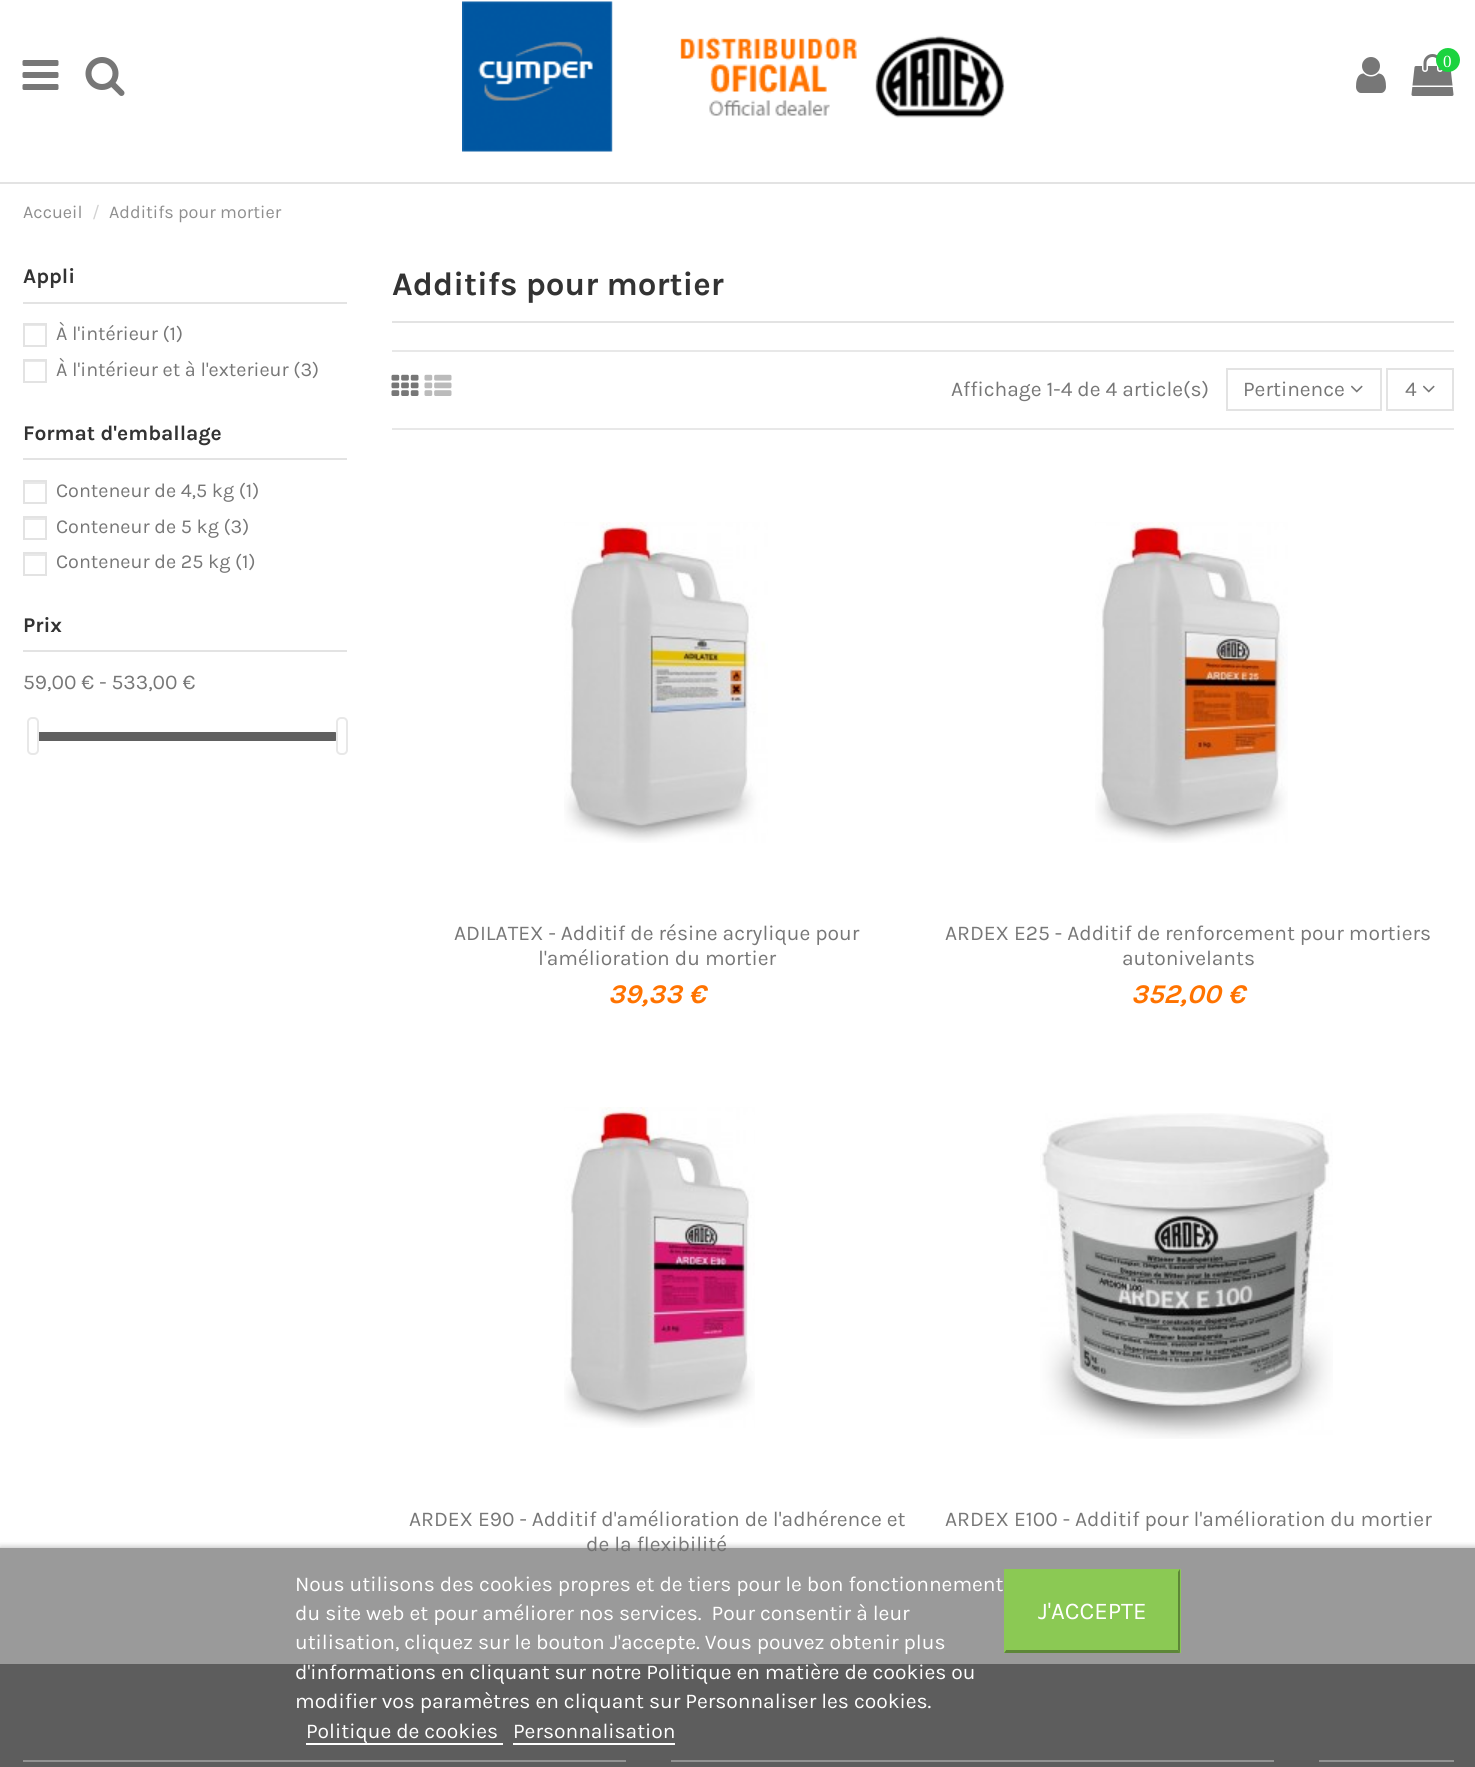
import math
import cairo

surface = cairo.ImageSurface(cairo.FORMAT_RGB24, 1475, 1767)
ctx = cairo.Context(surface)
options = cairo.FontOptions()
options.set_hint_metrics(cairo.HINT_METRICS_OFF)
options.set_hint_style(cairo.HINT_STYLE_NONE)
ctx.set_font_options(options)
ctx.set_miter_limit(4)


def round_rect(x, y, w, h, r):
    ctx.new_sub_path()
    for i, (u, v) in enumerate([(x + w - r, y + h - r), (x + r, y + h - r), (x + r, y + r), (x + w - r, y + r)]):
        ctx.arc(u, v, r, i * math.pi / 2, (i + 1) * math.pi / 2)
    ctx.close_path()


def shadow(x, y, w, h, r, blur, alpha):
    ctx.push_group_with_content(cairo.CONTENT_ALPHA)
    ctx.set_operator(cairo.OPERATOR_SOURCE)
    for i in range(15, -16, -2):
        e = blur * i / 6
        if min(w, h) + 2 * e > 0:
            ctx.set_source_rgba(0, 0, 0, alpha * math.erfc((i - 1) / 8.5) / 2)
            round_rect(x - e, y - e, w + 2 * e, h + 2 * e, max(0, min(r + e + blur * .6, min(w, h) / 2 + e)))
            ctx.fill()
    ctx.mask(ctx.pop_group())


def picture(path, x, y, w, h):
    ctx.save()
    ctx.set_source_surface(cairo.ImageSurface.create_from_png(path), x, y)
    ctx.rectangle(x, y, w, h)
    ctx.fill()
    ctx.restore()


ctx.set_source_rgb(1, 1, 1)
ctx.paint()
ctx.set_source_rgb(0.89, 0.89, 0.89)
ctx.rectangle(0, 182, 1475, 2)
ctx.fill()
picture("img1.png", 22, 60, 37, 30)
picture("img2.png", 85, 57, 40, 39)
picture("img3.png", 462, 1, 543, 151)
picture("img4.png", 1356, 57, 30, 36)
picture("img5.png", 1411, 54, 43, 42)
ctx.set_source_rgb(0.106, 0.827, 0.247)
ctx.arc(1448, 60, 12, 0, 2 * math.pi)
ctx.fill()
ctx.select_font_face("Liberation Serif")
ctx.set_font_size(17)
ctx.set_source_rgb(1, 1, 1)
ctx.move_to(1443, 67)
ctx.show_text("0")
ctx.select_font_face("Karla")
ctx.set_font_size(18)
ctx.set_source_rgb(0.561, 0.561, 0.561)
ctx.move_to(23, 218)
ctx.show_text("Accueil")
ctx.set_source_rgb(0.824, 0.824, 0.824)
ctx.move_to(92, 218)
ctx.show_text("/")
ctx.set_source_rgb(0.561, 0.561, 0.561)
ctx.move_to(109, 218)
ctx.show_text("Additifs pour mortier")
ctx.set_source_rgb(0.89, 0.89, 0.89)
ctx.rectangle(23, 302, 324, 2)
ctx.fill()
ctx.select_font_face("Karla", cairo.FONT_SLANT_NORMAL, cairo.FONT_WEIGHT_BOLD)
ctx.set_font_size(21)
ctx.set_source_rgb(0.2, 0.2, 0.2)
ctx.move_to(23, 283)
ctx.show_text("Appli")
ctx.set_source_rgb(0.91, 0.91, 0.91)
ctx.rectangle(24, 325, 21, 1)
ctx.fill()
ctx.rectangle(24, 324, 22, 22)
ctx.set_source_rgb(0.89, 0.89, 0.89)
ctx.stroke()
ctx.select_font_face("Karla")
ctx.set_font_size(19.75)
ctx.set_source_rgb(0.467, 0.467, 0.467)
ctx.move_to(56, 340)
ctx.show_text("À l'intérieur (1)")
ctx.set_source_rgb(0.91, 0.91, 0.91)
ctx.rectangle(24, 361, 21, 1)
ctx.fill()
ctx.rectangle(24, 360, 22, 22)
ctx.set_source_rgb(0.89, 0.89, 0.89)
ctx.stroke()
ctx.set_source_rgb(0.467, 0.467, 0.467)
ctx.move_to(56, 376)
ctx.show_text("À l'intérieur et à l'exterieur (3)")
ctx.set_source_rgb(0.89, 0.89, 0.89)
ctx.rectangle(23, 458, 324, 2)
ctx.fill()
ctx.select_font_face("Karla", cairo.FONT_SLANT_NORMAL, cairo.FONT_WEIGHT_BOLD)
ctx.set_font_size(21)
ctx.set_source_rgb(0.2, 0.2, 0.2)
ctx.move_to(23, 440)
ctx.show_text("Format d'emballage")
ctx.set_source_rgb(0.91, 0.91, 0.91)
ctx.rectangle(24, 482, 21, 2)
ctx.fill()
ctx.rectangle(24, 481, 22, 22)
ctx.set_source_rgb(0.89, 0.89, 0.89)
ctx.stroke()
ctx.select_font_face("Karla")
ctx.set_font_size(19.75)
ctx.set_source_rgb(0.467, 0.467, 0.467)
ctx.move_to(56, 497)
ctx.show_text("Conteneur de 4,5 kg (1)")
ctx.set_source_rgb(0.91, 0.91, 0.91)
ctx.rectangle(24, 518, 21, 2)
ctx.fill()
ctx.rectangle(24, 517, 22, 22)
ctx.set_source_rgb(0.89, 0.89, 0.89)
ctx.stroke()
ctx.set_source_rgb(0.467, 0.467, 0.467)
ctx.move_to(56, 533)
ctx.show_text("Conteneur de 5 kg (3)")
ctx.set_source_rgb(0.91, 0.91, 0.91)
ctx.rectangle(24, 554, 21, 2)
ctx.fill()
ctx.rectangle(24, 553, 22, 22)
ctx.set_source_rgb(0.89, 0.89, 0.89)
ctx.stroke()
ctx.set_source_rgb(0.467, 0.467, 0.467)
ctx.move_to(56, 568)
ctx.show_text("Conteneur de 25 kg (1)")
ctx.set_source_rgb(0.89, 0.89, 0.89)
ctx.rectangle(23, 650, 324, 2)
ctx.fill()
ctx.select_font_face("Karla", cairo.FONT_SLANT_NORMAL, cairo.FONT_WEIGHT_BOLD)
ctx.set_font_size(21)
ctx.set_source_rgb(0.2, 0.2, 0.2)
ctx.move_to(23, 632)
ctx.show_text("Prix")
ctx.select_font_face("Karla")
ctx.set_source_rgb(0.467, 0.467, 0.467)
ctx.move_to(23, 689)
ctx.show_text("59,00 € - 533,00 €")
ctx.set_source_rgb(0.941, 0.941, 0.941)
round_rect(30, 732, 309, 9, 4.5)
ctx.fill()
ctx.set_source_rgba(0, 0, 0, 0.6)
round_rect(30, 732, 309, 9, 4.5)
ctx.fill()
ctx.set_source_rgb(1, 1, 1)
round_rect(28, 718, 10, 36, 4)
ctx.fill_preserve()
ctx.set_source_rgb(0.91, 0.91, 0.91)
ctx.stroke()
ctx.set_source_rgb(1, 1, 1)
round_rect(337, 718, 10, 36, 4)
ctx.fill_preserve()
ctx.set_source_rgb(0.91, 0.91, 0.91)
ctx.stroke()
ctx.set_source_rgb(0.89, 0.89, 0.89)
ctx.rectangle(392, 321, 1062, 2)
ctx.fill()
ctx.select_font_face("Karla", cairo.FONT_SLANT_NORMAL, cairo.FONT_WEIGHT_BOLD)
ctx.set_font_size(33)
ctx.set_source_rgb(0.2, 0.2, 0.2)
ctx.move_to(392, 295)
ctx.show_text("Additifs pour mortier")
ctx.set_source_rgb(0.91, 0.91, 0.91)
ctx.rectangle(392, 350, 1062, 2)
ctx.fill()
ctx.rectangle(392, 428, 1062, 2)
ctx.fill()
picture("img6.png", 391, 374, 28, 22)
picture("img7.png", 424, 374, 28, 22)
ctx.select_font_face("Karla")
ctx.set_font_size(21)
ctx.set_source_rgb(0.467, 0.467, 0.467)
ctx.move_to(951, 396)
ctx.show_text("Affichage 1-4 de 4 article(s)")
ctx.rectangle(1227, 369, 154, 41)
ctx.set_source_rgb(0.89, 0.89, 0.89)
ctx.stroke()
ctx.set_source_rgb(0.467, 0.467, 0.467)
ctx.move_to(1243, 396)
ctx.show_text("Pertinence")
picture("img8.png", 1351, 385, 12, 8)
ctx.rectangle(1387, 369, 66, 41)
ctx.set_source_rgb(0.89, 0.89, 0.89)
ctx.stroke()
ctx.set_source_rgb(0.467, 0.467, 0.467)
ctx.move_to(1405, 396)
ctx.show_text("4")
picture("img8.png", 1423, 385, 12, 8)
picture("img9.png", 564, 522, 204, 321)
ctx.move_to(454, 940)
ctx.show_text("ADILATEX - Additif de résine acrylique pour")
ctx.move_to(538, 965)
ctx.show_text("l'amélioration du mortier")
ctx.select_font_face("Karla", cairo.FONT_SLANT_ITALIC, cairo.FONT_WEIGHT_BOLD)
ctx.set_font_size(27)
ctx.set_source_rgb(1, 0.451, 0)
ctx.move_to(608, 1003)
ctx.show_text("39,33 €")
picture("img10.png", 1095, 522, 193, 321)
ctx.select_font_face("Karla")
ctx.set_font_size(21)
ctx.set_source_rgb(0.467, 0.467, 0.467)
ctx.move_to(945, 940)
ctx.show_text("ARDEX E25 - Additif de renforcement pour mortiers")
ctx.move_to(1122, 965)
ctx.show_text("autonivelants")
ctx.select_font_face("Karla", cairo.FONT_SLANT_ITALIC, cairo.FONT_WEIGHT_BOLD)
ctx.set_font_size(27)
ctx.set_source_rgb(1, 0.451, 0)
ctx.move_to(1131, 1003)
ctx.show_text("352,00 €")
picture("img11.png", 564, 1107, 191, 321)
ctx.select_font_face("Karla")
ctx.set_font_size(21)
ctx.set_source_rgb(0.467, 0.467, 0.467)
ctx.move_to(409, 1526)
ctx.show_text("ARDEX E90 - Additif d'amélioration de l'adhérence et")
ctx.move_to(586, 1551)
ctx.show_text("de la flexibilité")
picture("img12.png", 1040, 1113, 293, 326)
ctx.move_to(945, 1526)
ctx.show_text("ARDEX E100 - Additif pour l'amélioration du mortier")
ctx.set_source_rgb(0.2, 0.2, 0.2)
ctx.rectangle(0, 1664, 1475, 103)
ctx.fill()
ctx.set_source_rgb(0.89, 0.89, 0.89)
ctx.rectangle(23, 1760, 603, 2)
ctx.fill()
ctx.rectangle(671, 1760, 603, 2)
ctx.fill()
ctx.rectangle(1319, 1760, 135, 2)
ctx.fill()
ctx.save()
ctx.rectangle(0, 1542, 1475, 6)
ctx.clip()
ctx.set_source_rgb(0.439, 0.439, 0.439)
shadow(0, 1550, 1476, 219, 0, 4, 1)
ctx.restore()
ctx.set_source_rgba(0.439, 0.439, 0.439, 0.7)
ctx.rectangle(0, 1548, 1475, 219)
ctx.fill()
ctx.set_source_rgb(1, 1, 1)
ctx.move_to(295, 1591)
ctx.show_text("Nous utilisons des cookies propres et de tiers pour le bon fonctionnement")
ctx.move_to(295, 1620)
ctx.show_text("du site web et pour améliorer nos services.  Pour consentir à leur")
ctx.move_to(295, 1649)
ctx.show_text("utilisation, cliquez sur le bouton J'accepte. Vous pouvez obtenir plus")
ctx.move_to(295, 1679)
ctx.show_text("d'informations en cliquant sur notre Politique en matière de cookies ou")
ctx.move_to(295, 1708)
ctx.show_text("modifier vos paramètres en cliquant sur Personnaliser les cookies.")
ctx.rectangle(306, 1743, 197, 2)
ctx.fill()
ctx.move_to(306, 1738)
ctx.show_text("Politique de cookies")
ctx.move_to(513, 1738)
ctx.show_text("Personnalisation")
ctx.rectangle(513, 1743, 162, 2)
ctx.fill()
ctx.set_source_rgb(0.545, 0.788, 0.329)
ctx.rectangle(1004, 1569, 177, 84)
ctx.fill()
ctx.set_source_rgb(0.365, 0.525, 0.22)
ctx.new_path()
ctx.move_to(1180, 1569)
ctx.line_to(1180, 1653)
ctx.line_to(1178, 1650)
ctx.line_to(1178, 1572)
ctx.close_path()
ctx.fill()
ctx.new_path()
ctx.move_to(1180, 1653)
ctx.line_to(1004, 1653)
ctx.line_to(1006, 1650)
ctx.line_to(1178, 1650)
ctx.close_path()
ctx.fill()
ctx.set_source_rgb(0.545, 0.788, 0.329)
ctx.new_path()
ctx.move_to(1004, 1653)
ctx.line_to(1004, 1569)
ctx.line_to(1006, 1572)
ctx.line_to(1006, 1650)
ctx.close_path()
ctx.fill()
ctx.set_font_size(24)
ctx.set_source_rgb(1, 1, 1)
ctx.move_to(1038, 1619)
ctx.show_text("J'ACCEPTE")
surface.write_to_png("page.png")
